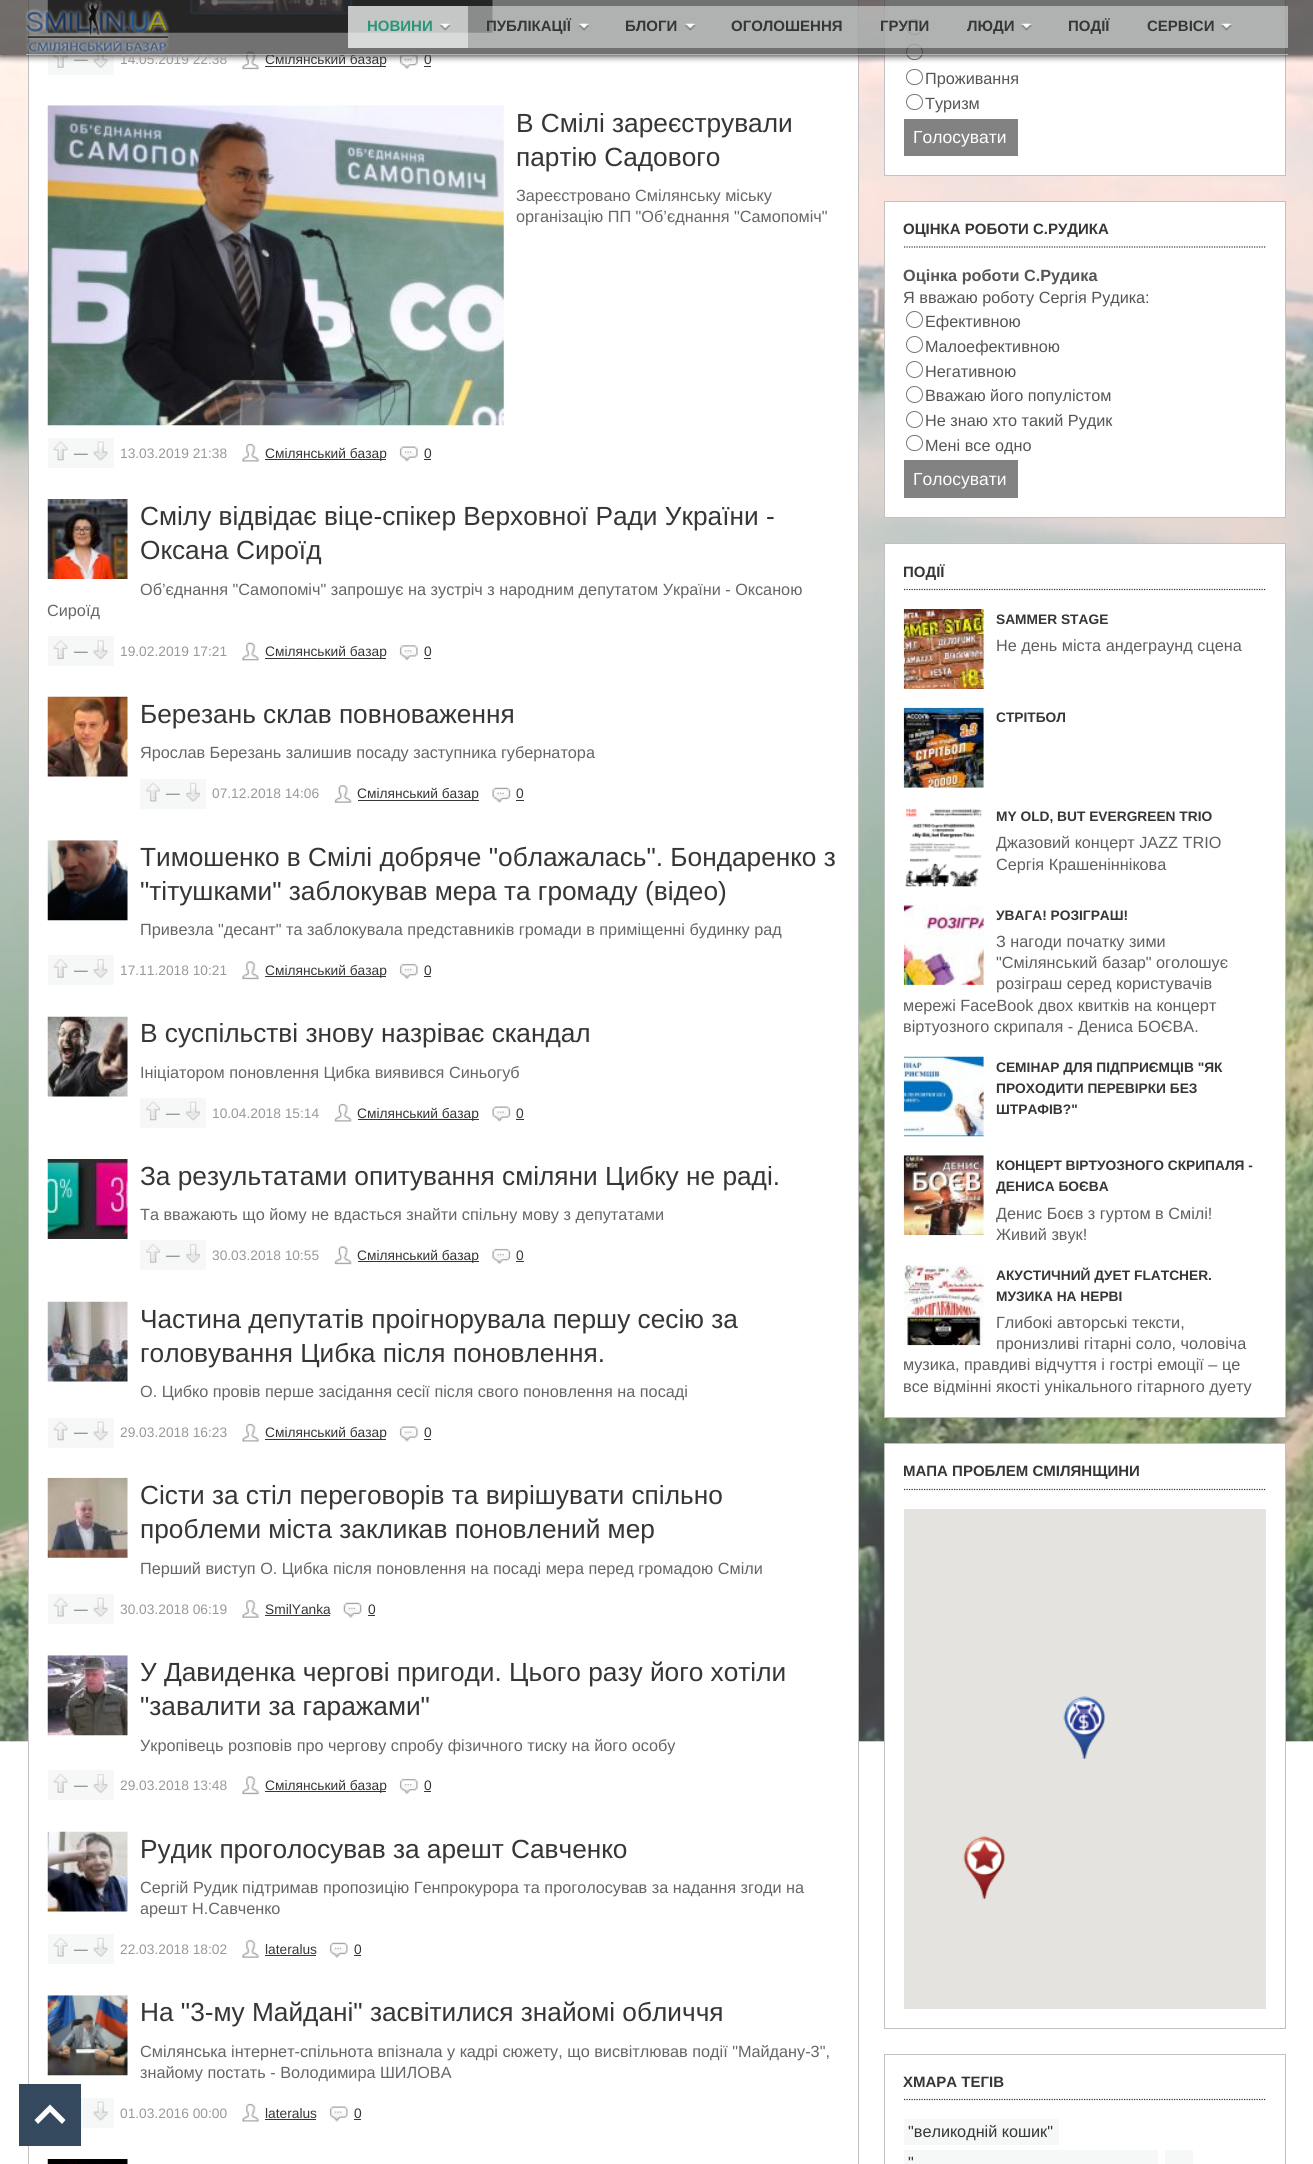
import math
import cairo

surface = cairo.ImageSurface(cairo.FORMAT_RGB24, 1313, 2164)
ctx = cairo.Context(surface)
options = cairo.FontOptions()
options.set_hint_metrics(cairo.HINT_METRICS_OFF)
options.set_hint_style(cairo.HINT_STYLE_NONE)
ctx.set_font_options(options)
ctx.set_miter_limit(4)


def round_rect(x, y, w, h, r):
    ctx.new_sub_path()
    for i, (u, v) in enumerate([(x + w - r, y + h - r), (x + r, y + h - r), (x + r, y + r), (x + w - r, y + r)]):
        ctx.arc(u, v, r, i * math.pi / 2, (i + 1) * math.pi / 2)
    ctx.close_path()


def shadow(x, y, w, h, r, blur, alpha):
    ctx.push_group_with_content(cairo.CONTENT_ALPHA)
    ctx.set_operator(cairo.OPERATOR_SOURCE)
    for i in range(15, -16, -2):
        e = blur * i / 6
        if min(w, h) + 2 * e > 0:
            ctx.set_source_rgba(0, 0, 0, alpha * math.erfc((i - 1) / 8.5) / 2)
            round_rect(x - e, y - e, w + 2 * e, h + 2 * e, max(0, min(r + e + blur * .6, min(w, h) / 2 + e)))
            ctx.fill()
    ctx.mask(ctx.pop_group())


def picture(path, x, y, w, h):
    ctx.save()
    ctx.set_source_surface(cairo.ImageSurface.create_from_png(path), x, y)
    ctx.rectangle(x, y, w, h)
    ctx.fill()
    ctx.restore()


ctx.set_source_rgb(1, 1, 1)
ctx.paint()
picture("img1.png", 0, 0, 1313, 1742)
ctx.set_source_rgb(1, 1, 1)
ctx.rectangle(29, 0, 829, 1742)
ctx.fill()
ctx.rectangle(28.5, -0.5, 830, 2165)
ctx.set_source_rgb(0.757, 0.757, 0.757)
ctx.set_line_width(1)
ctx.stroke()
picture("img8.png", 47, 0, 446, 33)
ctx.set_source_rgb(0.961, 0.965, 0.965)
ctx.rectangle(48, 45, 66, 30)
ctx.fill()
picture("img9.png", 53, 49, 15, 19)
picture("img10.png", 93, 49, 15, 19)
picture("img11.png", 241, 51, 18, 19)
ctx.set_source_rgb(0.212, 0.212, 0.212)
ctx.rectangle(265, 66, 121, 1)
ctx.fill()
picture("img12.png", 399, 53, 19, 17)
ctx.rectangle(424, 66, 7, 1)
ctx.fill()
ctx.set_source_rgb(1, 1, 1)
ctx.rectangle(884.5, -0.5, 401, 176)
ctx.fill_preserve()
ctx.set_source_rgb(0.757, 0.757, 0.757)
ctx.stroke()
round_rect(906.5, 19.5, 16, 15, 7.5)
ctx.set_source_rgb(0.463, 0.463, 0.463)
ctx.stroke()
round_rect(906.5, 44.5, 16, 15, 7.5)
ctx.stroke()
ctx.save()
ctx.rectangle(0, 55, 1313, 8)
ctx.clip()
ctx.set_source_rgb(0, 0, 0)
shadow(0, 0, 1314, 55, 0, 4, 1)
ctx.restore()
ctx.select_font_face("Liberation Sans")
ctx.set_font_size(13.75)
ctx.set_source_rgb(0.6, 0.6, 0.6)
ctx.move_to(120, 64)
ctx.show_text("14.05.2019 22:38")
ctx.set_source_rgb(0.212, 0.212, 0.212)
ctx.move_to(265, 64)
ctx.show_text("Смілянський базар")
ctx.move_to(424, 64)
ctx.show_text("0")
ctx.set_source_rgba(0.212, 0.212, 0.212, 0.7)
ctx.rectangle(0, 0, 1313, 55)
ctx.fill()
ctx.set_source_rgb(0.698, 0.698, 0.698)
ctx.rectangle(26, 54, 1262, 1)
ctx.fill()
picture("img2.png", 26, 0, 143, 54)
ctx.set_source_rgba(0.941, 0.957, 0.957, 0.5)
ctx.rectangle(348, 6, 940, 42)
ctx.fill()
ctx.set_source_rgba(1, 1, 1, 0.5)
ctx.rectangle(348, 6, 120, 42)
ctx.fill()
ctx.select_font_face("Liberation Sans", cairo.FONT_SLANT_NORMAL, cairo.FONT_WEIGHT_BOLD)
ctx.set_font_size(15)
ctx.set_source_rgb(0.169, 0.584, 0.471)
ctx.move_to(367, 31)
ctx.show_text("НОВИНИ")
picture("img3.png", 440, 23, 11, 8)
ctx.set_source_rgb(0.212, 0.212, 0.212)
ctx.move_to(486, 31)
ctx.show_text("ПУБЛІКАЦІЇ")
picture("img4.png", 578, 23, 11, 8)
ctx.move_to(625, 31)
ctx.show_text("БЛОГИ")
picture("img5.png", 685, 23, 11, 8)
ctx.move_to(731, 31)
ctx.show_text("ОГОЛОШЕННЯ")
ctx.move_to(880, 31)
ctx.show_text("ГРУПИ")
ctx.move_to(967, 31)
ctx.show_text("ЛЮДИ")
picture("img6.png", 1021, 23, 11, 8)
ctx.move_to(1068, 31)
ctx.show_text("ПОДІЇ")
ctx.move_to(1147, 31)
ctx.show_text("СЕРВІСИ")
picture("img7.png", 1221, 23, 11, 8)
ctx.set_font_size(13.75)
ctx.set_source_rgb(0.6, 0.6, 0.6)
ctx.move_to(74, 64)
ctx.show_text("—")
picture("img13.png", 47, 105, 457, 321)
ctx.select_font_face("Liberation Sans")
ctx.set_font_size(26.25)
ctx.set_source_rgb(0.212, 0.212, 0.212)
ctx.move_to(516, 132)
ctx.show_text("В Смілі зареєстрували")
ctx.move_to(516, 166)
ctx.show_text("партію Садового")
ctx.set_font_size(16.25)
ctx.set_source_rgb(0.4, 0.4, 0.4)
ctx.move_to(516, 201)
ctx.show_text("Зареєстровано Смілянську міську")
ctx.move_to(516, 222)
ctx.show_text("організацію ПП \"Об’єднання \"Самопоміч\"")
ctx.set_source_rgb(0.961, 0.965, 0.965)
ctx.rectangle(48, 438, 66, 30)
ctx.fill()
picture("img14.png", 53, 441, 15, 20)
ctx.select_font_face("Liberation Sans", cairo.FONT_SLANT_NORMAL, cairo.FONT_WEIGHT_BOLD)
ctx.set_font_size(13.75)
ctx.set_source_rgb(0.6, 0.6, 0.6)
ctx.move_to(74, 458)
ctx.show_text("—")
picture("img15.png", 93, 441, 15, 20)
ctx.select_font_face("Liberation Sans")
ctx.move_to(120, 458)
ctx.show_text("13.03.2019 21:38")
picture("img16.png", 242, 443, 17, 19)
ctx.set_source_rgb(0.212, 0.212, 0.212)
ctx.rectangle(265, 459, 121, 1)
ctx.fill()
ctx.move_to(265, 458)
ctx.show_text("Смілянський базар")
picture("img17.png", 399, 446, 19, 16)
ctx.move_to(424, 458)
ctx.show_text("0")
ctx.rectangle(424, 459, 7, 1)
ctx.fill()
picture("img18.png", 47, 499, 81, 80)
ctx.set_font_size(26.25)
ctx.move_to(140, 525)
ctx.show_text("Смілу відвідає віце-спікер Верховної Ради України -")
ctx.move_to(140, 559)
ctx.show_text("Оксана Сироїд")
ctx.set_font_size(16.25)
ctx.set_source_rgb(0.4, 0.4, 0.4)
ctx.move_to(140, 595)
ctx.show_text("Об’єднання \"Самопоміч\" запрошує на зустріч з народним депутатом України - Оксаною")
ctx.move_to(47, 616)
ctx.show_text("Сироїд")
ctx.set_source_rgb(0.961, 0.965, 0.965)
ctx.rectangle(48, 636, 66, 30)
ctx.fill()
picture("img19.png", 53, 640, 15, 19)
ctx.select_font_face("Liberation Sans", cairo.FONT_SLANT_NORMAL, cairo.FONT_WEIGHT_BOLD)
ctx.set_font_size(13.75)
ctx.set_source_rgb(0.6, 0.6, 0.6)
ctx.move_to(74, 656)
ctx.show_text("—")
picture("img20.png", 93, 640, 15, 19)
ctx.select_font_face("Liberation Sans")
ctx.move_to(120, 656)
ctx.show_text("19.02.2019 17:21")
picture("img21.png", 241, 642, 18, 19)
ctx.set_source_rgb(0.212, 0.212, 0.212)
ctx.rectangle(265, 658, 121, 1)
ctx.fill()
ctx.move_to(265, 656)
ctx.show_text("Смілянський базар")
picture("img22.png", 399, 645, 19, 16)
ctx.move_to(424, 656)
ctx.show_text("0")
ctx.rectangle(424, 658, 7, 1)
ctx.fill()
picture("img23.png", 47, 696, 81, 81)
ctx.set_font_size(26.25)
ctx.move_to(140, 723)
ctx.show_text("Березань склав повноваження")
ctx.set_font_size(16.25)
ctx.set_source_rgb(0.4, 0.4, 0.4)
ctx.move_to(140, 758)
ctx.show_text("Ярослав Березань залишив посаду заступника губернатора")
ctx.set_source_rgb(0.961, 0.965, 0.965)
ctx.rectangle(140, 779, 66, 30)
ctx.fill()
picture("img24.png", 146, 782, 14, 20)
ctx.select_font_face("Liberation Sans", cairo.FONT_SLANT_NORMAL, cairo.FONT_WEIGHT_BOLD)
ctx.set_font_size(13.75)
ctx.set_source_rgb(0.6, 0.6, 0.6)
ctx.move_to(166, 798)
ctx.show_text("—")
picture("img25.png", 186, 782, 14, 20)
ctx.select_font_face("Liberation Sans")
ctx.move_to(212, 798)
ctx.show_text("07.12.2018 14:06")
picture("img26.png", 334, 785, 18, 18)
ctx.set_source_rgb(0.212, 0.212, 0.212)
ctx.rectangle(358, 800, 121, 1)
ctx.fill()
ctx.move_to(357, 798)
ctx.show_text("Смілянський базар")
picture("img27.png", 492, 787, 19, 16)
ctx.move_to(516, 798)
ctx.show_text("0")
ctx.rectangle(516, 800, 8, 1)
ctx.fill()
picture("img28.png", 47, 840, 81, 81)
ctx.set_font_size(26.25)
ctx.move_to(140, 866)
ctx.show_text("Тимошенко в Смілі добряче \"облажалась\". Бондаренко з")
ctx.move_to(140, 900)
ctx.show_text("\"тітушками\" заблокував мера та громаду (відео)")
ctx.set_font_size(16.25)
ctx.set_source_rgb(0.4, 0.4, 0.4)
ctx.move_to(140, 935)
ctx.show_text("Привезла \"десант\" та заблокувала представників громади в приміщенні будинку рад")
ctx.set_source_rgb(0.961, 0.965, 0.965)
ctx.rectangle(48, 955, 66, 30)
ctx.fill()
picture("img9.png", 53, 959, 15, 19)
ctx.select_font_face("Liberation Sans", cairo.FONT_SLANT_NORMAL, cairo.FONT_WEIGHT_BOLD)
ctx.set_font_size(13.75)
ctx.set_source_rgb(0.6, 0.6, 0.6)
ctx.move_to(74, 975)
ctx.show_text("—")
picture("img10.png", 93, 959, 15, 19)
ctx.select_font_face("Liberation Sans")
ctx.move_to(120, 975)
ctx.show_text("17.11.2018 10:21")
picture("img11.png", 241, 961, 18, 19)
ctx.set_source_rgb(0.212, 0.212, 0.212)
ctx.rectangle(265, 976, 121, 1)
ctx.fill()
ctx.move_to(265, 975)
ctx.show_text("Смілянський базар")
picture("img12.png", 399, 963, 19, 17)
ctx.move_to(424, 975)
ctx.show_text("0")
ctx.rectangle(424, 976, 7, 1)
ctx.fill()
picture("img29.png", 47, 1016, 81, 81)
ctx.set_font_size(26.25)
ctx.move_to(140, 1042)
ctx.show_text("В суспільстві знову назріває скандал")
ctx.set_font_size(16.25)
ctx.set_source_rgb(0.4, 0.4, 0.4)
ctx.move_to(140, 1078)
ctx.show_text("Ініціатором поновлення Цибка виявився Синьогуб")
ctx.set_source_rgb(0.961, 0.965, 0.965)
ctx.rectangle(140, 1098, 66, 30)
ctx.fill()
picture("img30.png", 146, 1101, 14, 20)
ctx.select_font_face("Liberation Sans", cairo.FONT_SLANT_NORMAL, cairo.FONT_WEIGHT_BOLD)
ctx.set_font_size(13.75)
ctx.set_source_rgb(0.6, 0.6, 0.6)
ctx.move_to(166, 1118)
ctx.show_text("—")
picture("img31.png", 186, 1101, 14, 20)
ctx.select_font_face("Liberation Sans")
ctx.move_to(212, 1118)
ctx.show_text("10.04.2018 15:14")
picture("img32.png", 334, 1103, 18, 19)
ctx.set_source_rgb(0.212, 0.212, 0.212)
ctx.rectangle(358, 1119, 121, 1)
ctx.fill()
ctx.move_to(357, 1118)
ctx.show_text("Смілянський базар")
picture("img33.png", 492, 1106, 19, 16)
ctx.move_to(516, 1118)
ctx.show_text("0")
ctx.rectangle(516, 1119, 8, 1)
ctx.fill()
picture("img34.png", 47, 1159, 81, 80)
ctx.set_font_size(26.25)
ctx.move_to(140, 1185)
ctx.show_text("За результатами опитування сміляни Цибку не раді.")
ctx.set_font_size(16.25)
ctx.set_source_rgb(0.4, 0.4, 0.4)
ctx.move_to(140, 1220)
ctx.show_text("Та вважають що йому не вдасться знайти спільну мову з депутатами")
ctx.set_source_rgb(0.961, 0.965, 0.965)
ctx.rectangle(140, 1240, 66, 30)
ctx.fill()
picture("img35.png", 146, 1244, 14, 19)
ctx.select_font_face("Liberation Sans", cairo.FONT_SLANT_NORMAL, cairo.FONT_WEIGHT_BOLD)
ctx.set_font_size(13.75)
ctx.set_source_rgb(0.6, 0.6, 0.6)
ctx.move_to(166, 1260)
ctx.show_text("—")
picture("img36.png", 186, 1244, 14, 19)
ctx.select_font_face("Liberation Sans")
ctx.move_to(212, 1260)
ctx.show_text("30.03.2018 10:55")
picture("img37.png", 334, 1246, 18, 19)
ctx.set_source_rgb(0.212, 0.212, 0.212)
ctx.rectangle(358, 1261, 121, 1)
ctx.fill()
ctx.move_to(357, 1260)
ctx.show_text("Смілянський базар")
picture("img38.png", 492, 1248, 19, 17)
ctx.move_to(516, 1260)
ctx.show_text("0")
ctx.rectangle(516, 1261, 8, 1)
ctx.fill()
picture("img39.png", 47, 1301, 81, 81)
ctx.set_font_size(26.25)
ctx.move_to(140, 1328)
ctx.show_text("Частина депутатів проігнорувала першу сесію за")
ctx.move_to(140, 1362)
ctx.show_text("головування Цибка після поновлення.")
ctx.set_font_size(16.25)
ctx.set_source_rgb(0.4, 0.4, 0.4)
ctx.move_to(140, 1397)
ctx.show_text("О. Цибко провів перше засідання сесії після свого поновлення на посаді")
ctx.set_source_rgb(0.961, 0.965, 0.965)
ctx.rectangle(48, 1418, 66, 30)
ctx.fill()
picture("img14.png", 53, 1421, 15, 20)
ctx.select_font_face("Liberation Sans", cairo.FONT_SLANT_NORMAL, cairo.FONT_WEIGHT_BOLD)
ctx.set_font_size(13.75)
ctx.set_source_rgb(0.6, 0.6, 0.6)
ctx.move_to(74, 1437)
ctx.show_text("—")
picture("img15.png", 93, 1421, 15, 20)
ctx.select_font_face("Liberation Sans")
ctx.move_to(120, 1437)
ctx.show_text("29.03.2018 16:23")
picture("img16.png", 242, 1423, 17, 19)
ctx.set_source_rgb(0.212, 0.212, 0.212)
ctx.rectangle(265, 1439, 121, 1)
ctx.fill()
ctx.move_to(265, 1437)
ctx.show_text("Смілянський базар")
picture("img17.png", 399, 1426, 19, 16)
ctx.move_to(424, 1437)
ctx.show_text("0")
ctx.rectangle(424, 1439, 7, 1)
ctx.fill()
picture("img40.png", 47, 1477, 81, 81)
ctx.set_font_size(26.25)
ctx.move_to(140, 1504)
ctx.show_text("Сісти за стіл переговорів та вирішувати спільно")
ctx.move_to(140, 1538)
ctx.show_text("проблеми міста закликав поновлений мер")
ctx.set_font_size(16.25)
ctx.set_source_rgb(0.4, 0.4, 0.4)
ctx.move_to(140, 1574)
ctx.show_text("Перший виступ О. Цибка після поновлення на посаді мера перед громадою Сміли")
ctx.set_source_rgb(0.961, 0.965, 0.965)
ctx.rectangle(48, 1594, 66, 30)
ctx.fill()
picture("img41.png", 53, 1597, 15, 20)
ctx.select_font_face("Liberation Sans", cairo.FONT_SLANT_NORMAL, cairo.FONT_WEIGHT_BOLD)
ctx.set_font_size(13.75)
ctx.set_source_rgb(0.6, 0.6, 0.6)
ctx.move_to(74, 1614)
ctx.show_text("—")
picture("img42.png", 93, 1597, 15, 20)
ctx.select_font_face("Liberation Sans")
ctx.move_to(120, 1614)
ctx.show_text("30.03.2018 06:19")
picture("img43.png", 242, 1600, 17, 18)
ctx.set_source_rgb(0.212, 0.212, 0.212)
ctx.move_to(265, 1614)
ctx.show_text("SmilYanka")
ctx.rectangle(265, 1615, 65, 1)
ctx.fill()
picture("img44.png", 343, 1602, 19, 16)
ctx.move_to(368, 1614)
ctx.show_text("0")
ctx.rectangle(368, 1615, 7, 1)
ctx.fill()
picture("img45.png", 47, 1655, 81, 81)
ctx.set_font_size(26.25)
ctx.move_to(140, 1681)
ctx.show_text("У Давиденка чергові пригоди. Цього разу його хотіли")
ctx.move_to(140, 1715)
ctx.show_text("\"завалити за гаражами\"")
ctx.set_font_size(16.25)
ctx.set_source_rgb(0.4, 0.4, 0.4)
ctx.move_to(140, 1751)
ctx.show_text("Укропівець розповів про чергову спробу фізичного тиску на його особу")
ctx.set_source_rgb(0.961, 0.965, 0.965)
ctx.rectangle(48, 1770, 66, 30)
ctx.fill()
picture("img9.png", 53, 1774, 15, 19)
ctx.select_font_face("Liberation Sans", cairo.FONT_SLANT_NORMAL, cairo.FONT_WEIGHT_BOLD)
ctx.set_font_size(13.75)
ctx.set_source_rgb(0.6, 0.6, 0.6)
ctx.move_to(74, 1790)
ctx.show_text("—")
picture("img10.png", 93, 1774, 15, 19)
ctx.select_font_face("Liberation Sans")
ctx.move_to(120, 1790)
ctx.show_text("29.03.2018 13:48")
picture("img11.png", 241, 1776, 18, 19)
ctx.set_source_rgb(0.212, 0.212, 0.212)
ctx.rectangle(265, 1791, 121, 1)
ctx.fill()
ctx.move_to(265, 1790)
ctx.show_text("Смілянський базар")
picture("img12.png", 399, 1778, 19, 17)
ctx.move_to(424, 1790)
ctx.show_text("0")
ctx.rectangle(424, 1791, 7, 1)
ctx.fill()
picture("img46.png", 47, 1831, 81, 81)
ctx.set_font_size(26.25)
ctx.move_to(140, 1858)
ctx.show_text("Рудик проголосував за арешт Савченко")
ctx.set_font_size(16.25)
ctx.set_source_rgb(0.4, 0.4, 0.4)
ctx.move_to(140, 1893)
ctx.show_text("Сергій Рудик підтримав пропозицію Генпрокурора та проголосував за надання згоди на")
ctx.move_to(140, 1914)
ctx.show_text("арешт Н.Савченко")
ctx.set_source_rgb(0.961, 0.965, 0.965)
ctx.rectangle(48, 1934, 66, 30)
ctx.fill()
picture("img41.png", 53, 1937, 15, 20)
ctx.select_font_face("Liberation Sans", cairo.FONT_SLANT_NORMAL, cairo.FONT_WEIGHT_BOLD)
ctx.set_font_size(13.75)
ctx.set_source_rgb(0.6, 0.6, 0.6)
ctx.move_to(74, 1954)
ctx.show_text("—")
picture("img42.png", 93, 1937, 15, 20)
ctx.select_font_face("Liberation Sans")
ctx.move_to(120, 1954)
ctx.show_text("22.03.2018 18:02")
picture("img43.png", 242, 1940, 17, 18)
ctx.set_source_rgb(0.212, 0.212, 0.212)
ctx.move_to(265, 1954)
ctx.show_text("lateralus")
ctx.rectangle(265, 1955, 51, 1)
ctx.fill()
picture("img47.png", 329, 1942, 19, 16)
ctx.move_to(354, 1954)
ctx.show_text("0")
ctx.rectangle(354, 1955, 7, 1)
ctx.fill()
picture("img48.png", 47, 1995, 81, 81)
ctx.set_font_size(26.25)
ctx.move_to(140, 2021)
ctx.show_text("На \"3-му Майдані\" засвітилися знайомі обличчя")
ctx.set_font_size(16.25)
ctx.set_source_rgb(0.4, 0.4, 0.4)
ctx.move_to(140, 2057)
ctx.show_text("Смілянська інтернет-спільнота впізнала у кадрі сюжету, що висвітлював події \"Майдану-3\",")
ctx.move_to(140, 2078)
ctx.show_text("знайому постать - Володимира ШИЛОВА")
ctx.set_source_rgb(0.961, 0.965, 0.965)
ctx.rectangle(81, 2098, 33, 30)
ctx.fill()
picture("img15.png", 93, 2101, 15, 20)
ctx.set_font_size(13.75)
ctx.set_source_rgb(0.6, 0.6, 0.6)
ctx.move_to(120, 2118)
ctx.show_text("01.03.2016 00:00")
picture("img16.png", 242, 2103, 17, 19)
ctx.set_source_rgb(0.212, 0.212, 0.212)
ctx.move_to(265, 2118)
ctx.show_text("lateralus")
ctx.rectangle(265, 2119, 51, 1)
ctx.fill()
picture("img49.png", 329, 2106, 19, 16)
ctx.move_to(354, 2118)
ctx.show_text("0")
ctx.rectangle(354, 2119, 7, 1)
ctx.fill()
picture("img50.png", 47, 2159, 81, 5)
ctx.set_source_rgb(0.204, 0.286, 0.369)
ctx.rectangle(19, 2084, 62, 62)
ctx.fill()
ctx.set_source_rgb(1, 1, 1)
ctx.new_path()
ctx.move_to(50, 2104.5)
ctx.line_to(34.5, 2120)
ctx.line_to(38, 2124)
ctx.line_to(50, 2112)
ctx.line_to(62, 2124)
ctx.line_to(65.5, 2120)
ctx.close_path()
ctx.fill()
round_rect(906.5, 69.5, 16, 15, 7.5)
ctx.set_source_rgb(0.463, 0.463, 0.463)
ctx.stroke()
ctx.set_font_size(16.25)
ctx.set_source_rgb(0.333, 0.333, 0.333)
ctx.move_to(925, 84)
ctx.show_text("Проживання")
round_rect(906.5, 94.5, 16, 15, 7.5)
ctx.set_source_rgb(0.463, 0.463, 0.463)
ctx.stroke()
ctx.set_source_rgb(0.333, 0.333, 0.333)
ctx.move_to(925, 109)
ctx.show_text("Туризм")
ctx.set_source_rgb(0.51, 0.51, 0.51)
ctx.rectangle(904, 119, 114, 37)
ctx.fill()
ctx.set_font_size(17.5)
ctx.set_source_rgb(1, 1, 1)
ctx.move_to(913, 143)
ctx.show_text("Голосувати")
ctx.rectangle(884.5, 201.5, 401, 316)
ctx.fill_preserve()
ctx.set_source_rgb(0.757, 0.757, 0.757)
ctx.stroke()
ctx.new_path()
ctx.move_to(904, 247)
ctx.line_to(1266, 247)
ctx.set_source_rgb(0.212, 0.212, 0.212)
ctx.set_line_width(1.2)
ctx.set_dash([1.25, 1.25])
ctx.stroke()
ctx.select_font_face("Liberation Sans", cairo.FONT_SLANT_NORMAL, cairo.FONT_WEIGHT_BOLD)
ctx.set_font_size(15)
ctx.move_to(903, 234)
ctx.show_text("ОЦІНКА РОБОТИ С.РУДИКА")
ctx.set_font_size(16.25)
ctx.set_source_rgb(0.333, 0.333, 0.333)
ctx.move_to(903, 281)
ctx.show_text("Оцінка роботи С.Рудика")
ctx.select_font_face("Liberation Sans")
ctx.move_to(903, 303)
ctx.show_text("Я вважаю роботу Сергія Рудика:")
ctx.new_path()
ctx.arc(914.5, 319.5, 8, 0, 2 * math.pi)
ctx.set_source_rgb(0.463, 0.463, 0.463)
ctx.set_line_width(1)
ctx.set_dash([])
ctx.stroke()
ctx.set_source_rgb(0.333, 0.333, 0.333)
ctx.move_to(925, 327)
ctx.show_text("Ефективною")
ctx.new_path()
ctx.arc(914.5, 344.5, 8, 0, 2 * math.pi)
ctx.set_source_rgb(0.463, 0.463, 0.463)
ctx.stroke()
ctx.set_source_rgb(0.333, 0.333, 0.333)
ctx.move_to(925, 352)
ctx.show_text("Малоефективною")
ctx.new_path()
ctx.arc(914.5, 369.5, 8, 0, 2 * math.pi)
ctx.set_source_rgb(0.463, 0.463, 0.463)
ctx.stroke()
ctx.set_source_rgb(0.333, 0.333, 0.333)
ctx.move_to(925, 377)
ctx.show_text("Негативною")
ctx.new_path()
ctx.arc(914.5, 394.5, 8, 0, 2 * math.pi)
ctx.set_source_rgb(0.463, 0.463, 0.463)
ctx.stroke()
ctx.set_source_rgb(0.333, 0.333, 0.333)
ctx.move_to(925, 401)
ctx.show_text("Вважаю його популістом")
ctx.new_path()
ctx.arc(914.5, 419.5, 8, 0, 2 * math.pi)
ctx.set_source_rgb(0.463, 0.463, 0.463)
ctx.stroke()
ctx.set_source_rgb(0.333, 0.333, 0.333)
ctx.move_to(925, 426)
ctx.show_text("Не знаю хто такий Рудик")
round_rect(906.5, 435.5, 16, 15, 7.5)
ctx.set_source_rgb(0.463, 0.463, 0.463)
ctx.stroke()
ctx.set_source_rgb(0.333, 0.333, 0.333)
ctx.move_to(925, 451)
ctx.show_text("Мені все одно")
ctx.set_source_rgb(0.51, 0.51, 0.51)
ctx.rectangle(904, 460, 114, 38)
ctx.fill()
ctx.set_font_size(17.5)
ctx.set_source_rgb(1, 1, 1)
ctx.move_to(913, 485)
ctx.show_text("Голосувати")
ctx.rectangle(884.5, 543.5, 401, 874)
ctx.fill_preserve()
ctx.set_source_rgb(0.757, 0.757, 0.757)
ctx.stroke()
ctx.new_path()
ctx.move_to(904, 589.5)
ctx.line_to(1266, 589.5)
ctx.set_source_rgb(0.212, 0.212, 0.212)
ctx.set_line_width(1.2)
ctx.set_dash([1.25, 1.25])
ctx.stroke()
ctx.select_font_face("Liberation Sans", cairo.FONT_SLANT_NORMAL, cairo.FONT_WEIGHT_BOLD)
ctx.set_font_size(15)
ctx.move_to(903, 577)
ctx.show_text("ПОДІЇ")
picture("img51.png", 903, 609, 81, 80)
ctx.set_font_size(13.75)
ctx.move_to(996, 624)
ctx.show_text("SAMMER STAGE")
ctx.select_font_face("Liberation Sans")
ctx.set_font_size(16.25)
ctx.set_source_rgb(0.373, 0.373, 0.373)
ctx.move_to(996, 651)
ctx.show_text("Не день міста андеграунд сцена")
picture("img52.png", 903, 707, 81, 81)
ctx.select_font_face("Liberation Sans", cairo.FONT_SLANT_NORMAL, cairo.FONT_WEIGHT_BOLD)
ctx.set_font_size(13.75)
ctx.set_source_rgb(0.212, 0.212, 0.212)
ctx.move_to(996, 722)
ctx.show_text("СТРІТБОЛ")
picture("img53.png", 905, 808, 77, 79)
ctx.move_to(996, 821)
ctx.show_text("MY OLD, BUT EVERGREEN TRIO")
ctx.select_font_face("Liberation Sans")
ctx.set_font_size(16.25)
ctx.set_source_rgb(0.373, 0.373, 0.373)
ctx.move_to(996, 848)
ctx.show_text("Джазовий концерт JAZZ TRIO")
ctx.move_to(996, 870)
ctx.show_text("Сергія Крашеніннікова")
picture("img54.png", 903, 905, 81, 81)
ctx.select_font_face("Liberation Sans", cairo.FONT_SLANT_NORMAL, cairo.FONT_WEIGHT_BOLD)
ctx.set_font_size(13.75)
ctx.set_source_rgb(0.212, 0.212, 0.212)
ctx.move_to(996, 920)
ctx.show_text("УВАГА! РОЗІГРАШ!")
ctx.select_font_face("Liberation Sans")
ctx.set_font_size(16.25)
ctx.set_source_rgb(0.373, 0.373, 0.373)
ctx.move_to(996, 947)
ctx.show_text("З нагоди початку зими")
ctx.move_to(996, 968)
ctx.show_text("\"Смілянський базар\" оголошує")
ctx.move_to(996, 989)
ctx.show_text("розіграш серед користувачів")
ctx.move_to(903, 1011)
ctx.show_text("мережі FaceBook двох квитків на концерт")
ctx.move_to(903, 1032)
ctx.show_text("віртуозного скрипаля - Дениса БОЄВА.")
picture("img55.png", 903, 1056, 81, 81)
ctx.select_font_face("Liberation Sans", cairo.FONT_SLANT_NORMAL, cairo.FONT_WEIGHT_BOLD)
ctx.set_font_size(13.75)
ctx.set_source_rgb(0.212, 0.212, 0.212)
ctx.move_to(996, 1072)
ctx.show_text("СЕМІНАР ДЛЯ ПІДПРИЄМЦІВ \"ЯК")
ctx.move_to(996, 1093)
ctx.show_text("ПРОХОДИТИ ПЕРЕВІРКИ БЕЗ")
ctx.move_to(996, 1114)
ctx.show_text("ШТРАФІВ?\"")
picture("img56.png", 903, 1155, 81, 81)
ctx.move_to(996, 1170)
ctx.show_text("КОНЦЕРТ ВІРТУОЗНОГО СКРИПАЛЯ -")
ctx.move_to(996, 1191)
ctx.show_text("ДЕНИСА БОЄВА")
ctx.select_font_face("Liberation Sans")
ctx.set_font_size(16.25)
ctx.set_source_rgb(0.373, 0.373, 0.373)
ctx.move_to(996, 1219)
ctx.show_text("Денис Боєв з гуртом в Смілі!")
ctx.move_to(996, 1240)
ctx.show_text("Живий звук!")
picture("img57.png", 904, 1265, 80, 81)
ctx.select_font_face("Liberation Sans", cairo.FONT_SLANT_NORMAL, cairo.FONT_WEIGHT_BOLD)
ctx.set_font_size(13.75)
ctx.set_source_rgb(0.212, 0.212, 0.212)
ctx.move_to(996, 1280)
ctx.show_text("АКУСТИЧНИЙ ДУЕТ FLATCHER.")
ctx.move_to(996, 1301)
ctx.show_text("МУЗИКА НА НЕРВІ")
ctx.select_font_face("Liberation Sans")
ctx.set_font_size(16.25)
ctx.set_source_rgb(0.373, 0.373, 0.373)
ctx.move_to(996, 1328)
ctx.show_text("Глибокі авторські тексти,")
ctx.move_to(996, 1349)
ctx.show_text("пронизливі гітарні соло, чоловіча")
ctx.move_to(903, 1370)
ctx.show_text("музика, правдиві відчуття і гострі емоції – це")
ctx.move_to(903, 1392)
ctx.show_text("все відмінні якості унікального гітарного дуету")
ctx.set_source_rgb(1, 1, 1)
ctx.rectangle(885, 1444, 400, 298)
ctx.fill()
ctx.rectangle(884.5, 1443.5, 401, 585)
ctx.set_source_rgb(0.757, 0.757, 0.757)
ctx.set_line_width(1)
ctx.set_dash([])
ctx.stroke()
ctx.new_path()
ctx.move_to(904, 1489.5)
ctx.line_to(1266, 1489.5)
ctx.set_source_rgb(0.212, 0.212, 0.212)
ctx.set_line_width(1.2)
ctx.set_dash([1.25, 1.25])
ctx.stroke()
ctx.select_font_face("Liberation Sans", cairo.FONT_SLANT_NORMAL, cairo.FONT_WEIGHT_BOLD)
ctx.set_font_size(15)
ctx.move_to(903, 1476)
ctx.show_text("МАПА ПРОБЛЕМ СМІЛЯНЩИНИ")
ctx.set_source_rgb(0.898, 0.89, 0.875)
ctx.rectangle(904, 1509, 362, 500)
ctx.fill()
picture("img58.png", 1063, 1696, 42, 63)
picture("img59.png", 963, 1836, 42, 63)
ctx.rectangle(884.5, 2054.5, 401, 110)
ctx.set_source_rgb(0.757, 0.757, 0.757)
ctx.set_line_width(1)
ctx.set_dash([])
ctx.stroke()
ctx.new_path()
ctx.move_to(904, 2099.5)
ctx.line_to(1266, 2099.5)
ctx.set_source_rgb(0.212, 0.212, 0.212)
ctx.set_line_width(1.2)
ctx.set_dash([1.25, 1.25])
ctx.stroke()
ctx.move_to(903, 2087)
ctx.show_text("ХМАРА ТЕГІВ")
ctx.set_source_rgb(0.961, 0.965, 0.965)
ctx.rectangle(904, 2119, 155, 26)
ctx.fill()
ctx.select_font_face("Liberation Sans")
ctx.set_font_size(16.25)
ctx.set_source_rgb(0.212, 0.212, 0.212)
ctx.move_to(908, 2137)
ctx.show_text("\"великодній кошик\"")
ctx.set_source_rgb(0.961, 0.965, 0.965)
ctx.rectangle(904, 2150, 254, 14)
ctx.fill()
ctx.set_source_rgb(0.212, 0.212, 0.212)
ctx.move_to(908, 2168)
ctx.show_text("\"")
ctx.set_source_rgb(0.961, 0.965, 0.965)
ctx.rectangle(1165, 2150, 28, 14)
ctx.fill()
surface.write_to_png("page.png")
